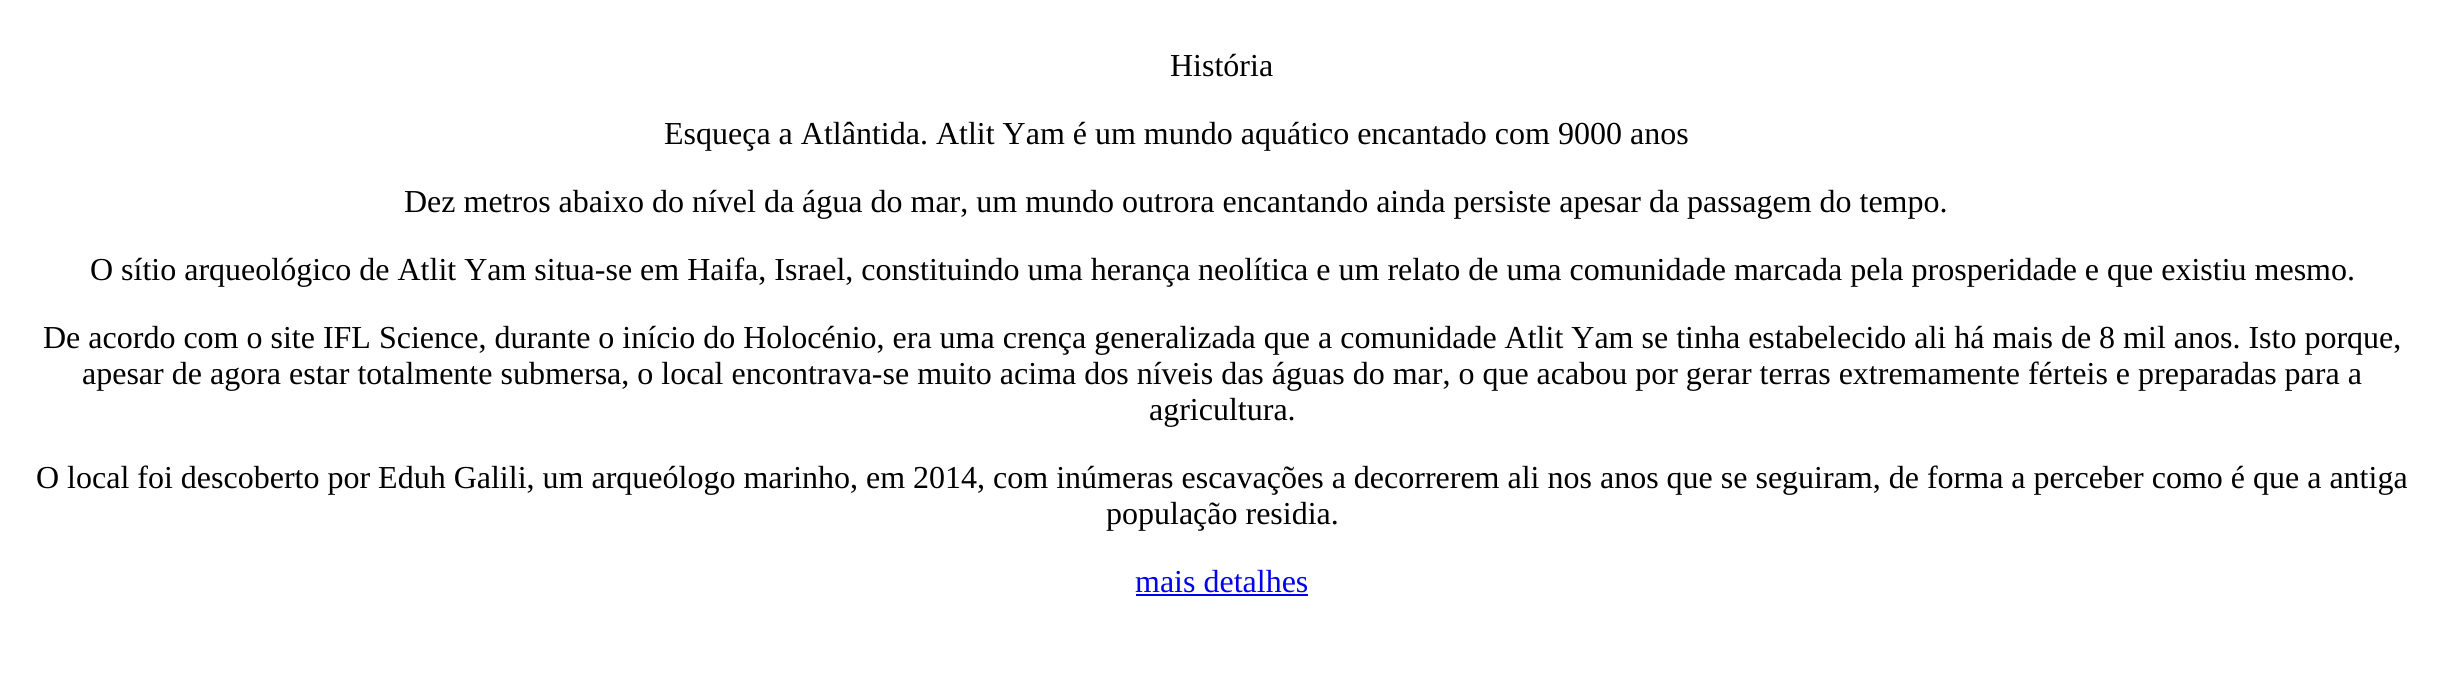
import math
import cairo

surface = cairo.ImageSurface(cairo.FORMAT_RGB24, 2444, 684)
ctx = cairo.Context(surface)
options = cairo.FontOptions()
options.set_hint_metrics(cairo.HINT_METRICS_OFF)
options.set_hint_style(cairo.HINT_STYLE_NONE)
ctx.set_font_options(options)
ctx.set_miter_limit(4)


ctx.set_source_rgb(1, 1, 1)
ctx.paint()
ctx.select_font_face("Liberation Serif")
ctx.set_font_size(32)
ctx.set_source_rgb(0, 0, 0)
ctx.move_to(1170, 76)
ctx.show_text("História")
ctx.move_to(664, 144)
ctx.show_text("Esqueça a Atlântida. Atlit Yam é um mundo aquático encantado com 9000 anos")
ctx.move_to(404, 212)
ctx.show_text("Dez metros abaixo do nível da água do mar, um mundo outrora encantando ainda persiste apesar da passagem do tempo.")
ctx.move_to(90, 280)
ctx.show_text("O sítio arqueológico de Atlit Yam situa-se em Haifa, Israel, constituindo uma herança neolítica e um relato de uma comunidade marcada pela prosperidade e que existiu mesmo.")
ctx.move_to(43, 348)
ctx.show_text("De acordo com o site IFL Science, durante o início do Holocénio, era uma crença generalizada que a comunidade Atlit Yam se tinha estabelecido ali há mais de 8 mil anos. Isto porque,")
ctx.move_to(82, 384)
ctx.show_text("apesar de agora estar totalmente submersa, o local encontrava-se muito acima dos níveis das águas do mar, o que acabou por gerar terras extremamente férteis e preparadas para a")
ctx.move_to(1149, 420)
ctx.show_text("agricultura.")
ctx.move_to(36, 488)
ctx.show_text("O local foi descoberto por Eduh Galili, um arqueólogo marinho, em 2014, com inúmeras escavações a decorrerem ali nos anos que se seguiram, de forma a perceber como é que a antiga")
ctx.move_to(1106, 524)
ctx.show_text("população residia.")
ctx.set_source_rgb(0, 0, 0.933)
ctx.move_to(1135, 592)
ctx.show_text("mais detalhes")
ctx.rectangle(1136, 594, 172, 2)
ctx.fill()
surface.write_to_png("page.png")
